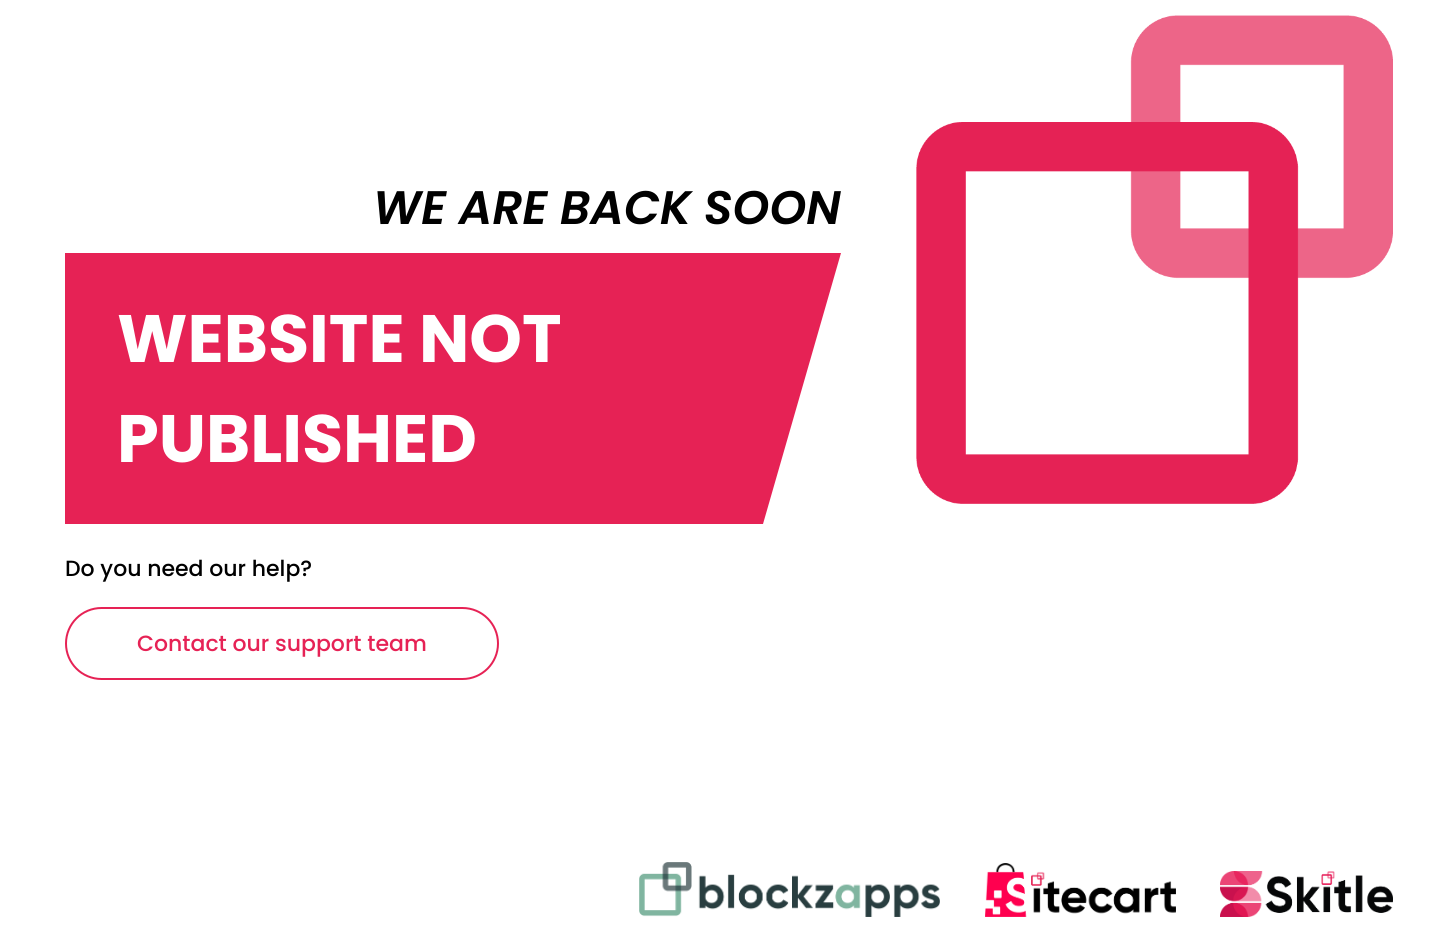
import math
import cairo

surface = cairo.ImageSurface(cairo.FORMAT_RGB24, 1443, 939)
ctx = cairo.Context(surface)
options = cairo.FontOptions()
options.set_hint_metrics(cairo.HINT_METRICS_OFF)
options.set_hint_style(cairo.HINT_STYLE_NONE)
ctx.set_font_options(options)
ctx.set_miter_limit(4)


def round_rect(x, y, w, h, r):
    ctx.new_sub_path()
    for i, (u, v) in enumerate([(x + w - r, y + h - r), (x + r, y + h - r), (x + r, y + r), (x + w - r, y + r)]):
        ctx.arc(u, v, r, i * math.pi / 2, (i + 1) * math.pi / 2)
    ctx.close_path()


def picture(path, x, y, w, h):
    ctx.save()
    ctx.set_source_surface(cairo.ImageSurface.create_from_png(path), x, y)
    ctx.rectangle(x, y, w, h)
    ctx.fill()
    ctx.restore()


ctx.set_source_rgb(1, 1, 1)
ctx.paint()
ctx.select_font_face("Poppins SemiBold", cairo.FONT_SLANT_ITALIC)
ctx.set_font_size(47)
ctx.set_source_rgb(0, 0, 0)
ctx.move_to(373, 224)
ctx.show_text("WE ARE BACK SOON")
ctx.set_source_rgb(0.902, 0.133, 0.333)
ctx.new_path()
ctx.move_to(65, 253)
ctx.line_to(65, 524)
ctx.line_to(763, 524)
ctx.line_to(841, 253)
ctx.close_path()
ctx.fill()
ctx.select_font_face("Poppins", cairo.FONT_SLANT_NORMAL, cairo.FONT_WEIGHT_BOLD)
ctx.set_font_size(67)
ctx.set_source_rgb(1, 1, 1)
ctx.move_to(117, 362)
ctx.show_text("WEBSITE NOT")
ctx.move_to(117, 462)
ctx.show_text("PUBLISHED")
ctx.select_font_face("Poppins Medium")
ctx.set_font_size(22)
ctx.set_source_rgb(0, 0, 0)
ctx.move_to(65, 576)
ctx.show_text("Do you need our help?")
round_rect(66, 608, 432, 71, 35.5)
ctx.set_source_rgb(0.902, 0.133, 0.333)
ctx.stroke()
ctx.move_to(137, 651)
ctx.show_text("Contact our support team")
picture("img1.png", 916, 15, 477, 489)
picture("img2.png", 639, 862, 301, 55)
picture("img3.png", 985, 863, 191, 54)
picture("img4.png", 1220, 871, 173, 46)
surface.write_to_png("page.png")
